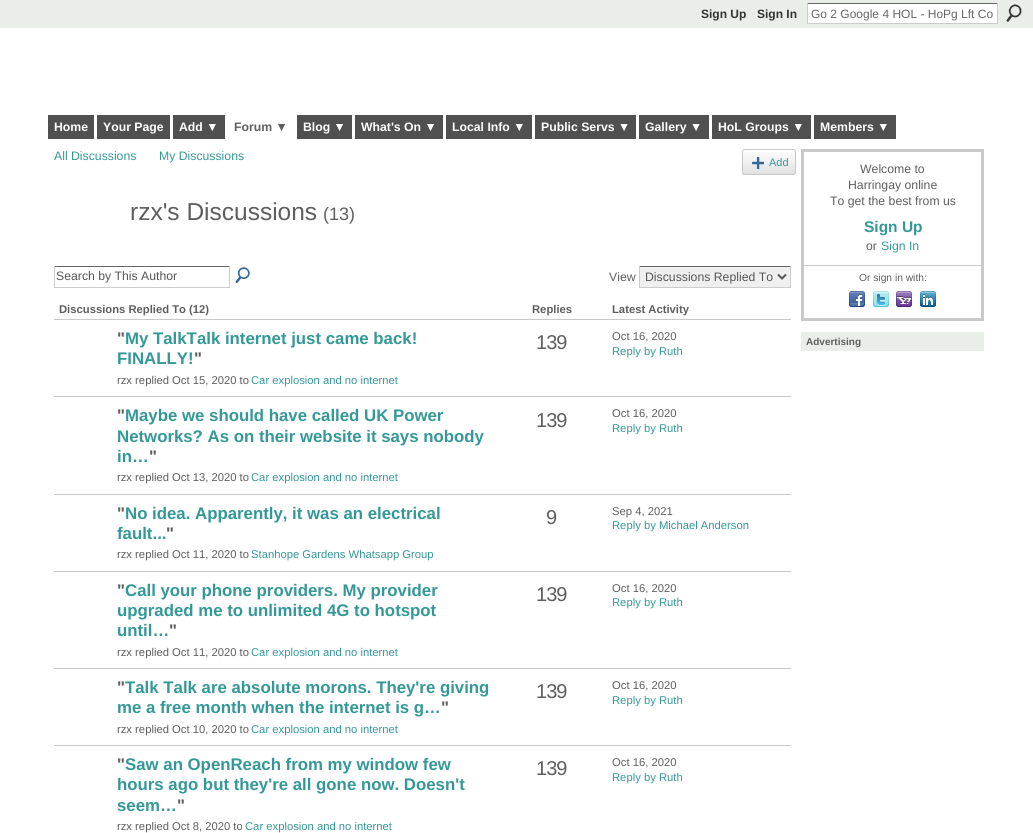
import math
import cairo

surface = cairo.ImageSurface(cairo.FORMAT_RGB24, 1033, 833)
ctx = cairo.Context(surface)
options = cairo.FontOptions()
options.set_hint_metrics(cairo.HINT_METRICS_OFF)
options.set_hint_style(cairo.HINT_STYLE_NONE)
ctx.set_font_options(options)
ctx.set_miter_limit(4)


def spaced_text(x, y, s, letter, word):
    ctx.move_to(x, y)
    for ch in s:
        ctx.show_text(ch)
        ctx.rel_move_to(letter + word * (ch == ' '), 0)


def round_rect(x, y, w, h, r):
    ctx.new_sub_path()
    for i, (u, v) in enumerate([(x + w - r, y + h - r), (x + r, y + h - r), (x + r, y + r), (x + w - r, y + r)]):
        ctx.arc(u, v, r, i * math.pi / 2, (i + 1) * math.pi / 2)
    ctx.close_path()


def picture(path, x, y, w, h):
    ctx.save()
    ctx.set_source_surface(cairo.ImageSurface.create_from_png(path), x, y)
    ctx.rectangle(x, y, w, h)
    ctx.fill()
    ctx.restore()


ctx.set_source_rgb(1, 1, 1)
ctx.paint()
ctx.set_source_rgb(0.914, 0.933, 0.91)
ctx.rectangle(0, 0, 1033, 28)
ctx.fill()
ctx.select_font_face("Liberation Sans", cairo.FONT_SLANT_NORMAL, cairo.FONT_WEIGHT_BOLD)
ctx.set_font_size(12)
ctx.set_source_rgb(0.2, 0.2, 0.2)
ctx.move_to(701, 18)
ctx.show_text("Sign Up")
ctx.move_to(757, 18)
ctx.show_text("Sign In")
ctx.set_source_rgb(1, 1, 1)
ctx.rectangle(808, 4, 189, 19)
ctx.fill()
ctx.set_source_rgb(0.4, 0.4, 0.4)
ctx.rectangle(807, 3, 191, 1)
ctx.fill()
ctx.set_source_rgb(0.8, 0.8, 0.8)
ctx.rectangle(997, 3, 1, 21)
ctx.fill()
ctx.rectangle(807, 23, 191, 1)
ctx.fill()
ctx.rectangle(807, 3, 1, 21)
ctx.fill()
ctx.select_font_face("Liberation Sans")
ctx.set_source_rgb(0.4, 0.4, 0.4)
ctx.move_to(811, 18)
ctx.show_text("Go 2 Google 4 HOL - HoPg Lft Co")
picture("img1.png", 1006, 4, 16, 18)
ctx.set_source_rgb(0.314, 0.314, 0.314)
ctx.rectangle(48, 115, 46, 24)
ctx.fill()
ctx.select_font_face("Liberation Sans", cairo.FONT_SLANT_NORMAL, cairo.FONT_WEIGHT_BOLD)
ctx.set_font_size(12.25)
ctx.set_source_rgb(1, 1, 1)
ctx.move_to(54, 131)
ctx.show_text("Home")
ctx.set_source_rgb(0.314, 0.314, 0.314)
ctx.rectangle(97, 115, 73, 24)
ctx.fill()
ctx.set_source_rgb(1, 1, 1)
ctx.move_to(103, 131)
ctx.show_text("Your Page")
ctx.set_source_rgb(0.314, 0.314, 0.314)
ctx.rectangle(173, 115, 52, 24)
ctx.fill()
ctx.set_source_rgb(1, 1, 1)
ctx.move_to(179, 131)
ctx.show_text("Add ▼")
ctx.set_source_rgb(0.369, 0.369, 0.369)
ctx.move_to(234, 131)
ctx.show_text("Forum ▼")
ctx.set_source_rgb(0.314, 0.314, 0.314)
ctx.rectangle(297, 115, 55, 24)
ctx.fill()
ctx.set_source_rgb(1, 1, 1)
ctx.move_to(303, 131)
ctx.show_text("Blog ▼")
ctx.set_source_rgb(0.314, 0.314, 0.314)
ctx.rectangle(355, 115, 88, 24)
ctx.fill()
ctx.set_source_rgb(1, 1, 1)
ctx.move_to(361, 131)
ctx.show_text("What's On ▼")
ctx.set_source_rgb(0.314, 0.314, 0.314)
ctx.rectangle(446, 115, 86, 24)
ctx.fill()
ctx.set_source_rgb(1, 1, 1)
ctx.move_to(452, 131)
ctx.show_text("Local Info ▼")
ctx.set_source_rgb(0.314, 0.314, 0.314)
ctx.rectangle(535, 115, 101, 24)
ctx.fill()
ctx.set_source_rgb(1, 1, 1)
ctx.move_to(541, 131)
ctx.show_text("Public Servs ▼")
ctx.set_source_rgb(0.314, 0.314, 0.314)
ctx.rectangle(639, 115, 70, 24)
ctx.fill()
ctx.set_source_rgb(1, 1, 1)
ctx.move_to(645, 131)
ctx.show_text("Gallery ▼")
ctx.set_source_rgb(0.314, 0.314, 0.314)
ctx.rectangle(712, 115, 99, 24)
ctx.fill()
ctx.set_source_rgb(1, 1, 1)
ctx.move_to(718, 131)
ctx.show_text("HoL Groups ▼")
ctx.set_source_rgb(0.314, 0.314, 0.314)
ctx.rectangle(814, 115, 82, 24)
ctx.fill()
ctx.set_source_rgb(1, 1, 1)
ctx.move_to(820, 131)
ctx.show_text("Members ▼")
ctx.select_font_face("Liberation Sans")
ctx.set_source_rgb(0.204, 0.596, 0.6)
ctx.move_to(54, 160)
ctx.show_text("All Discussions")
ctx.move_to(159, 160)
ctx.show_text("My Discussions")
picture("img2.png", 742, 152, 54, 23)
round_rect(742.5, 149.5, 53, 25, 2.5)
ctx.set_source_rgb(0.788, 0.788, 0.788)
ctx.set_line_width(1)
ctx.stroke()
picture("img3.png", 752, 157, 12, 12)
ctx.set_font_size(11)
ctx.set_source_rgb(0.204, 0.596, 0.6)
ctx.move_to(769, 166)
ctx.show_text("Add")
ctx.set_font_size(24.5)
ctx.set_source_rgb(0.369, 0.369, 0.369)
ctx.move_to(130, 220)
ctx.show_text("rzx's Discussions")
ctx.set_font_size(18)
ctx.move_to(323, 220)
ctx.show_text("(13)")
ctx.set_source_rgb(0.4, 0.4, 0.4)
ctx.rectangle(54, 266, 176, 1)
ctx.fill()
ctx.set_source_rgb(0.8, 0.8, 0.8)
ctx.rectangle(229, 266, 1, 22)
ctx.fill()
ctx.rectangle(54, 287, 176, 1)
ctx.fill()
ctx.rectangle(54, 266, 1, 22)
ctx.fill()
ctx.set_font_size(12.25)
ctx.set_source_rgb(0.333, 0.333, 0.333)
ctx.move_to(56, 280)
ctx.show_text("Search by This Author")
picture("img4.png", 235, 267, 15, 16)
ctx.set_source_rgb(0.369, 0.369, 0.369)
ctx.move_to(609, 281)
ctx.show_text("View")
ctx.set_source_rgb(0.937, 0.937, 0.937)
ctx.rectangle(640, 267, 150, 20)
ctx.fill()
ctx.set_source_rgb(0.4, 0.4, 0.4)
ctx.rectangle(639, 266, 152, 1)
ctx.fill()
ctx.set_source_rgb(0.8, 0.8, 0.8)
ctx.rectangle(790, 266, 1, 22)
ctx.fill()
ctx.rectangle(639, 287, 152, 1)
ctx.fill()
ctx.rectangle(639, 266, 1, 22)
ctx.fill()
ctx.new_path()
ctx.move_to(778, 274.5)
ctx.line_to(782, 278.5)
ctx.line_to(786, 274.5)
ctx.set_source_rgb(0.333, 0.333, 0.333)
ctx.set_line_width(2)
ctx.stroke()
ctx.move_to(645, 281)
ctx.show_text("Discussions Replied To")
ctx.select_font_face("Liberation Sans", cairo.FONT_SLANT_NORMAL, cairo.FONT_WEIGHT_BOLD)
ctx.set_font_size(11.25)
ctx.set_source_rgb(0.369, 0.369, 0.369)
ctx.move_to(59, 313)
ctx.show_text("Discussions Replied To (12)")
ctx.move_to(532, 313)
ctx.show_text("Replies")
ctx.set_source_rgb(0.788, 0.788, 0.788)
ctx.rectangle(54, 319, 737, 1)
ctx.fill()
ctx.set_source_rgb(0.369, 0.369, 0.369)
ctx.move_to(612, 313)
ctx.show_text("Latest Activity")
ctx.set_font_size(16.8)
ctx.move_to(117, 344)
ctx.show_text("\"")
ctx.set_source_rgb(0.204, 0.596, 0.6)
ctx.move_to(125, 344)
ctx.show_text("My TalkTalk internet just came back!")
ctx.move_to(117, 364)
ctx.show_text("FINALLY!")
ctx.set_source_rgb(0.369, 0.369, 0.369)
ctx.move_to(194, 364)
ctx.show_text("\"")
ctx.select_font_face("Liberation Sans")
ctx.set_font_size(11.25)
ctx.move_to(117, 384)
ctx.show_text("rzx replied Oct 15, 2020 to")
ctx.set_source_rgb(0.204, 0.596, 0.6)
ctx.move_to(251, 384)
ctx.show_text("Car explosion and no internet")
ctx.set_font_size(20)
ctx.set_source_rgb(0.369, 0.369, 0.369)
spaced_text(536, 349, "139", -1, 0)
ctx.set_source_rgb(0.788, 0.788, 0.788)
ctx.rectangle(54, 396, 737, 1)
ctx.fill()
ctx.set_font_size(11.25)
ctx.set_source_rgb(0.369, 0.369, 0.369)
ctx.move_to(612, 340)
ctx.show_text("Oct 16, 2020")
ctx.set_source_rgb(0.204, 0.596, 0.6)
ctx.move_to(612, 355)
ctx.show_text("Reply by Ruth")
ctx.select_font_face("Liberation Sans", cairo.FONT_SLANT_NORMAL, cairo.FONT_WEIGHT_BOLD)
ctx.set_font_size(16.8)
ctx.set_source_rgb(0.369, 0.369, 0.369)
ctx.move_to(117, 421)
ctx.show_text("\"")
ctx.set_source_rgb(0.204, 0.596, 0.6)
ctx.move_to(125, 421)
ctx.show_text("Maybe we should have called UK Power")
ctx.move_to(117, 442)
ctx.show_text("Networks? As on their website it says nobody")
ctx.move_to(117, 462)
ctx.show_text("in…")
ctx.set_source_rgb(0.369, 0.369, 0.369)
ctx.move_to(149, 462)
ctx.show_text("\"")
ctx.select_font_face("Liberation Sans")
ctx.set_font_size(11.25)
ctx.move_to(117, 481)
ctx.show_text("rzx replied Oct 13, 2020 to")
ctx.set_source_rgb(0.204, 0.596, 0.6)
ctx.move_to(251, 481)
ctx.show_text("Car explosion and no internet")
ctx.set_font_size(20)
ctx.set_source_rgb(0.369, 0.369, 0.369)
spaced_text(536, 427, "139", -1, 0)
ctx.set_source_rgb(0.788, 0.788, 0.788)
ctx.rectangle(54, 494, 737, 1)
ctx.fill()
ctx.set_font_size(11.25)
ctx.set_source_rgb(0.369, 0.369, 0.369)
ctx.move_to(612, 417)
ctx.show_text("Oct 16, 2020")
ctx.set_source_rgb(0.204, 0.596, 0.6)
ctx.move_to(612, 432)
ctx.show_text("Reply by Ruth")
ctx.select_font_face("Liberation Sans", cairo.FONT_SLANT_NORMAL, cairo.FONT_WEIGHT_BOLD)
ctx.set_font_size(16.8)
ctx.set_source_rgb(0.369, 0.369, 0.369)
ctx.move_to(117, 519)
ctx.show_text("\"")
ctx.set_source_rgb(0.204, 0.596, 0.6)
ctx.move_to(125, 519)
ctx.show_text("No idea. Apparently, it was an electrical")
ctx.move_to(117, 539)
ctx.show_text("fault...")
ctx.set_source_rgb(0.369, 0.369, 0.369)
ctx.move_to(166, 539)
ctx.show_text("\"")
ctx.select_font_face("Liberation Sans")
ctx.set_font_size(11.25)
ctx.move_to(117, 558)
ctx.show_text("rzx replied Oct 11, 2020 to")
ctx.set_source_rgb(0.204, 0.596, 0.6)
ctx.move_to(251, 558)
ctx.show_text("Stanhope Gardens Whatsapp Group")
ctx.set_font_size(20)
ctx.set_source_rgb(0.369, 0.369, 0.369)
spaced_text(546, 524, "9", -1, 0)
ctx.set_source_rgb(0.788, 0.788, 0.788)
ctx.rectangle(54, 571, 737, 1)
ctx.fill()
ctx.set_font_size(11.25)
ctx.set_source_rgb(0.369, 0.369, 0.369)
ctx.move_to(612, 515)
ctx.show_text("Sep 4, 2021")
ctx.set_source_rgb(0.204, 0.596, 0.6)
ctx.move_to(612, 529)
ctx.show_text("Reply by Michael Anderson")
ctx.select_font_face("Liberation Sans", cairo.FONT_SLANT_NORMAL, cairo.FONT_WEIGHT_BOLD)
ctx.set_font_size(16.8)
ctx.set_source_rgb(0.369, 0.369, 0.369)
ctx.move_to(117, 596)
ctx.show_text("\"")
ctx.set_source_rgb(0.204, 0.596, 0.6)
ctx.move_to(125, 596)
ctx.show_text("Call your phone providers. My provider")
ctx.move_to(117, 616)
ctx.show_text("upgraded me to unlimited 4G to hotspot")
ctx.move_to(117, 636)
ctx.show_text("until…")
ctx.set_source_rgb(0.369, 0.369, 0.369)
ctx.move_to(169, 636)
ctx.show_text("\"")
ctx.select_font_face("Liberation Sans")
ctx.set_font_size(11.25)
ctx.move_to(117, 656)
ctx.show_text("rzx replied Oct 11, 2020 to")
ctx.set_source_rgb(0.204, 0.596, 0.6)
ctx.move_to(251, 656)
ctx.show_text("Car explosion and no internet")
ctx.set_font_size(20)
ctx.set_source_rgb(0.369, 0.369, 0.369)
spaced_text(536, 601, "139", -1, 0)
ctx.set_source_rgb(0.788, 0.788, 0.788)
ctx.rectangle(54, 668, 737, 1)
ctx.fill()
ctx.set_font_size(11.25)
ctx.set_source_rgb(0.369, 0.369, 0.369)
ctx.move_to(612, 592)
ctx.show_text("Oct 16, 2020")
ctx.set_source_rgb(0.204, 0.596, 0.6)
ctx.move_to(612, 606)
ctx.show_text("Reply by Ruth")
ctx.select_font_face("Liberation Sans", cairo.FONT_SLANT_NORMAL, cairo.FONT_WEIGHT_BOLD)
ctx.set_font_size(16.8)
ctx.set_source_rgb(0.369, 0.369, 0.369)
ctx.move_to(117, 693)
ctx.show_text("\"")
ctx.set_source_rgb(0.204, 0.596, 0.6)
ctx.move_to(125, 693)
ctx.show_text("Talk Talk are absolute morons. They're giving")
ctx.move_to(117, 713)
ctx.show_text("me a free month when the internet is g…")
ctx.set_source_rgb(0.369, 0.369, 0.369)
ctx.move_to(441, 713)
ctx.show_text("\"")
ctx.select_font_face("Liberation Sans")
ctx.set_font_size(11.25)
ctx.move_to(117, 733)
ctx.show_text("rzx replied Oct 10, 2020 to")
ctx.set_source_rgb(0.204, 0.596, 0.6)
ctx.move_to(251, 733)
ctx.show_text("Car explosion and no internet")
ctx.set_font_size(20)
ctx.set_source_rgb(0.369, 0.369, 0.369)
spaced_text(536, 698, "139", -1, 0)
ctx.set_source_rgb(0.788, 0.788, 0.788)
ctx.rectangle(54, 745, 737, 1)
ctx.fill()
ctx.set_font_size(11.25)
ctx.set_source_rgb(0.369, 0.369, 0.369)
ctx.move_to(612, 689)
ctx.show_text("Oct 16, 2020")
ctx.set_source_rgb(0.204, 0.596, 0.6)
ctx.move_to(612, 704)
ctx.show_text("Reply by Ruth")
ctx.select_font_face("Liberation Sans", cairo.FONT_SLANT_NORMAL, cairo.FONT_WEIGHT_BOLD)
ctx.set_font_size(16.8)
ctx.set_source_rgb(0.369, 0.369, 0.369)
ctx.move_to(117, 770)
ctx.show_text("\"")
ctx.set_source_rgb(0.204, 0.596, 0.6)
ctx.move_to(125, 770)
ctx.show_text("Saw an OpenReach from my window few")
ctx.move_to(117, 790)
ctx.show_text("hours ago but they're all gone now. Doesn't")
ctx.move_to(117, 811)
ctx.show_text("seem…")
ctx.set_source_rgb(0.369, 0.369, 0.369)
ctx.move_to(177, 811)
ctx.show_text("\"")
ctx.select_font_face("Liberation Sans")
ctx.set_font_size(11.25)
ctx.move_to(117, 830)
ctx.show_text("rzx replied Oct 8, 2020 to")
ctx.set_source_rgb(0.204, 0.596, 0.6)
ctx.move_to(245, 830)
ctx.show_text("Car explosion and no internet")
ctx.set_font_size(20)
ctx.set_source_rgb(0.369, 0.369, 0.369)
spaced_text(536, 775, "139", -1, 0)
ctx.set_font_size(11.25)
ctx.move_to(612, 766)
ctx.show_text("Oct 16, 2020")
ctx.set_source_rgb(0.204, 0.596, 0.6)
ctx.move_to(612, 781)
ctx.show_text("Reply by Ruth")
ctx.rectangle(802.5, 150.5, 180, 169)
ctx.set_source_rgb(0.788, 0.788, 0.788)
ctx.set_line_width(3)
ctx.stroke()
ctx.set_font_size(12.25)
ctx.set_source_rgb(0.369, 0.369, 0.369)
ctx.move_to(860, 173)
ctx.show_text("Welcome to")
ctx.move_to(848, 189)
ctx.show_text("Harringay online")
ctx.move_to(830, 205)
ctx.show_text("To get the best from us")
ctx.select_font_face("Liberation Sans", cairo.FONT_SLANT_NORMAL, cairo.FONT_WEIGHT_BOLD)
ctx.set_font_size(15.5)
ctx.set_source_rgb(0.204, 0.596, 0.6)
ctx.move_to(864, 232)
ctx.show_text("Sign Up")
ctx.select_font_face("Liberation Sans")
ctx.set_font_size(12.25)
ctx.set_source_rgb(0.369, 0.369, 0.369)
ctx.move_to(866, 250)
ctx.show_text("or")
ctx.set_source_rgb(0.204, 0.596, 0.6)
ctx.move_to(881, 250)
ctx.show_text("Sign In")
ctx.set_source_rgb(0.788, 0.788, 0.788)
ctx.rectangle(804, 265, 177, 1)
ctx.fill()
ctx.set_font_size(10.25)
ctx.set_source_rgb(0.369, 0.369, 0.369)
ctx.move_to(859, 281)
ctx.show_text("Or sign in with:")
picture("img5.png", 849, 291, 16, 16)
picture("img6.png", 873, 291, 16, 16)
picture("img7.png", 896, 291, 16, 16)
picture("img8.png", 920, 291, 16, 16)
ctx.set_source_rgb(0.914, 0.933, 0.91)
ctx.rectangle(801, 332, 183, 19)
ctx.fill()
ctx.select_font_face("Liberation Sans", cairo.FONT_SLANT_NORMAL, cairo.FONT_WEIGHT_BOLD)
ctx.set_font_size(10)
ctx.set_source_rgb(0.369, 0.369, 0.369)
ctx.move_to(806, 345)
ctx.show_text("Advertising")
surface.write_to_png("page.png")
